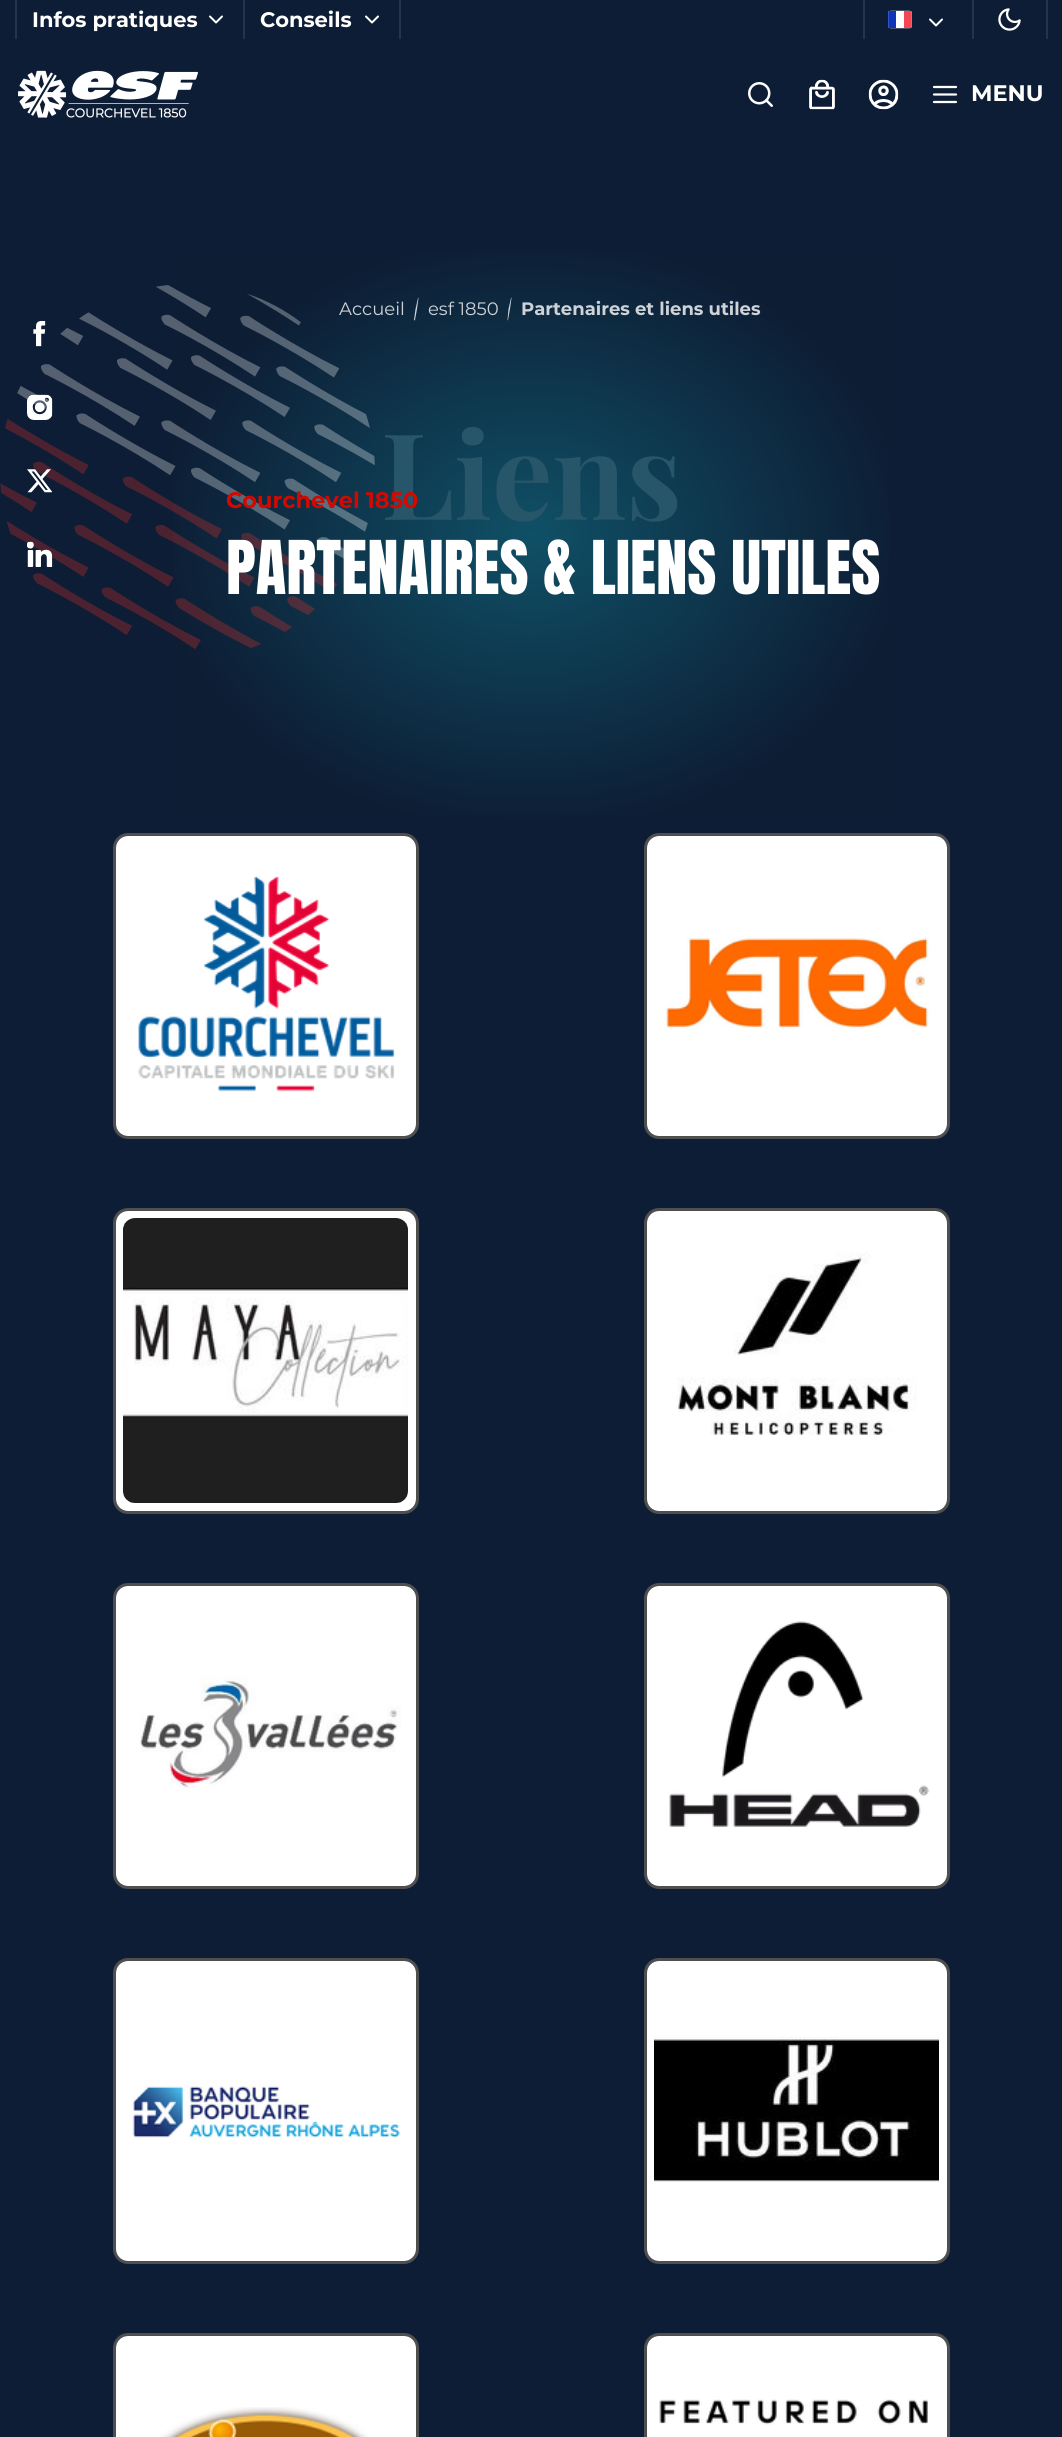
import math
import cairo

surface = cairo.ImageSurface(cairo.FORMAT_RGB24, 1062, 2437)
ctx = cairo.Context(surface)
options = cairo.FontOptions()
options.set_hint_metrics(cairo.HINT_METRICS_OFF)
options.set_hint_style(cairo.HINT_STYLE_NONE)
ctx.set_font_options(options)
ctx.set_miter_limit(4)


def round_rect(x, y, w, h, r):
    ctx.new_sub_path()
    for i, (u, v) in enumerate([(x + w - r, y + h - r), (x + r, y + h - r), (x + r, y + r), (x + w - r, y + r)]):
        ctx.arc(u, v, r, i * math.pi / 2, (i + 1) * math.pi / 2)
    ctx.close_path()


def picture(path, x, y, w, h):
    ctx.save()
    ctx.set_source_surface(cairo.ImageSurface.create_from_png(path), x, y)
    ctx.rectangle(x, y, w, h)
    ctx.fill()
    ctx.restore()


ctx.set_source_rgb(0.051, 0.114, 0.208)
ctx.paint()
ctx.set_source_rgb(0.145, 0.204, 0.286)
ctx.rectangle(243, 0, 2, 39)
ctx.fill()
ctx.rectangle(15, 0, 2, 39)
ctx.fill()
ctx.select_font_face("Montserrat", cairo.FONT_SLANT_NORMAL, cairo.FONT_WEIGHT_BOLD)
ctx.set_font_size(21)
ctx.set_source_rgb(1, 1, 1)
ctx.move_to(32, 27)
ctx.show_text("Infos pratiques")
picture("img1.png", 209, 15, 14, 9)
ctx.set_source_rgb(0.145, 0.204, 0.286)
ctx.rectangle(399, 0, 2, 39)
ctx.fill()
ctx.set_source_rgb(1, 1, 1)
ctx.move_to(260, 27)
ctx.show_text("Conseils")
picture("img1.png", 365, 15, 14, 9)
ctx.set_source_rgb(0.145, 0.204, 0.286)
ctx.rectangle(972, 0, 2, 39)
ctx.fill()
ctx.rectangle(863, 0, 2, 39)
ctx.fill()
picture("img2.png", 888, 10, 24, 19)
picture("img1.png", 929, 18, 14, 9)
ctx.rectangle(1046, 0, 2, 39)
ctx.fill()
picture("img3.png", 998, 8, 23, 23)
picture("img4.png", 18, 70, 180, 48)
picture("img5.png", 748, 82, 25, 25)
picture("img6.png", 809, 79, 26, 31)
picture("img7.png", 868, 79, 31, 31)
ctx.new_path()
ctx.move_to(934, 87)
ctx.line_to(956, 87)
ctx.move_to(934, 94.5)
ctx.line_to(956, 94.5)
ctx.move_to(934, 102)
ctx.line_to(956, 102)
ctx.set_source_rgb(1, 1, 1)
ctx.set_line_width(2.2)
ctx.set_line_cap(cairo.LINE_CAP_ROUND)
ctx.stroke()
ctx.set_font_size(22.5)
ctx.move_to(971, 101)
ctx.show_text("MENU")
gradient = cairo.RadialGradient(0, 0, 0, 0, 0, 1)
gradient.set_matrix(cairo.Matrix(1 / 751, 0, 0, 1 / 594, -1 * 531 / 751, -1 * 534 / 594))
gradient.add_color_stop_rgba(0, 0.059, 0.314, 0.4, 1)
gradient.add_color_stop_rgba(0.5, 0.051, 0.114, 0.204, 1)
ctx.set_source(gradient)
ctx.rectangle(173, 251, 716, 566)
ctx.fill()
ctx.select_font_face("Montserrat")
ctx.set_font_size(18)
ctx.set_source_rgb(0.812, 0.827, 0.847)
ctx.move_to(339, 315)
ctx.show_text("Accueil")
ctx.set_source_rgba(1, 1, 1, 0.8)
ctx.new_path()
ctx.move_to(418.5, 297.5)
ctx.line_to(418.5, 298)
ctx.line_to(417, 309)
ctx.line_to(415, 320)
ctx.line_to(414.5, 320.5)
ctx.line_to(414, 320)
ctx.line_to(415.5, 309)
ctx.line_to(418, 298)
ctx.close_path()
ctx.fill()
ctx.set_source_rgb(0.812, 0.827, 0.847)
ctx.move_to(428, 315)
ctx.show_text("esf 1850")
ctx.set_source_rgba(1, 1, 1, 0.8)
ctx.new_path()
ctx.move_to(511.5, 297.5)
ctx.line_to(511.5, 298)
ctx.line_to(510, 309)
ctx.line_to(508, 320)
ctx.line_to(507.5, 320.5)
ctx.line_to(507.5, 320)
ctx.line_to(508.5, 309)
ctx.line_to(511, 298)
ctx.close_path()
ctx.fill()
ctx.select_font_face("Montserrat", cairo.FONT_SLANT_NORMAL, cairo.FONT_WEIGHT_BOLD)
ctx.set_source_rgb(0.812, 0.827, 0.847)
ctx.move_to(521, 315)
ctx.show_text("Partenaires et liens utiles")
picture("img12.png", 0, 285, 375, 364)
picture("img8.png", 33, 321, 13, 26)
picture("img9.png", 27, 394, 26, 26)
picture("img10.png", 27, 469, 26, 24)
picture("img11.png", 27, 541, 26, 26)
ctx.select_font_face("Playfair Display", cairo.FONT_SLANT_NORMAL, cairo.FONT_WEIGHT_BOLD)
ctx.set_font_size(120)
ctx.set_source_rgb(0.153, 0.333, 0.412)
ctx.move_to(381, 520)
ctx.show_text("Liens")
ctx.select_font_face("Montserrat", cairo.FONT_SLANT_NORMAL, cairo.FONT_WEIGHT_BOLD)
ctx.set_font_size(22.5)
ctx.set_source_rgb(0.82, 0.039, 0)
ctx.move_to(226, 508)
ctx.show_text("Courchevel 1850")
ctx.select_font_face("Anton")
ctx.set_font_size(63)
ctx.set_source_rgb(1, 1, 1)
ctx.move_to(226, 594)
ctx.show_text("PARTENAIRES & LIENS UTILES")
round_rect(114.5, 834.5, 303, 303, 13.5)
ctx.set_source_rgb(0.31, 0.31, 0.31)
ctx.set_line_width(3)
ctx.set_line_cap(cairo.LINE_CAP_BUTT)
ctx.stroke()
ctx.set_source_rgb(1, 1, 1)
round_rect(116, 836, 300, 300, 12)
ctx.fill()
picture("img13.png", 138, 876, 257, 216)
round_rect(645.5, 834.5, 303, 303, 13.5)
ctx.set_source_rgb(0.31, 0.31, 0.31)
ctx.stroke()
ctx.set_source_rgb(1, 1, 1)
round_rect(647, 836, 300, 300, 12)
ctx.fill()
picture("img14.png", 666, 937, 264, 91)
round_rect(114.5, 1209.5, 303, 303, 13.5)
ctx.set_source_rgb(0.31, 0.31, 0.31)
ctx.stroke()
ctx.set_source_rgb(1, 1, 1)
round_rect(116, 1211, 300, 300, 12)
ctx.fill()
picture("img15.png", 123, 1218, 285, 285)
round_rect(645.5, 1209.5, 303, 303, 13.5)
ctx.set_source_rgb(0.31, 0.31, 0.31)
ctx.stroke()
ctx.set_source_rgb(1, 1, 1)
round_rect(647, 1211, 300, 300, 12)
ctx.fill()
picture("img16.png", 677, 1252, 240, 183)
round_rect(114.5, 1584.5, 303, 303, 13.5)
ctx.set_source_rgb(0.31, 0.31, 0.31)
ctx.stroke()
ctx.set_source_rgb(1, 1, 1)
round_rect(116, 1586, 300, 300, 12)
ctx.fill()
picture("img17.png", 140, 1675, 261, 113)
round_rect(645.5, 1584.5, 303, 303, 13.5)
ctx.set_source_rgb(0.31, 0.31, 0.31)
ctx.stroke()
ctx.set_source_rgb(1, 1, 1)
round_rect(647, 1586, 300, 300, 12)
ctx.fill()
picture("img18.png", 669, 1621, 261, 206)
round_rect(114.5, 1959.5, 303, 303, 13.5)
ctx.set_source_rgb(0.31, 0.31, 0.31)
ctx.stroke()
ctx.set_source_rgb(1, 1, 1)
round_rect(116, 1961, 300, 300, 12)
ctx.fill()
picture("img19.png", 132, 2086, 268, 52)
round_rect(645.5, 1959.5, 303, 303, 13.5)
ctx.set_source_rgb(0.31, 0.31, 0.31)
ctx.stroke()
ctx.set_source_rgb(1, 1, 1)
round_rect(647, 1961, 300, 300, 12)
ctx.fill()
picture("img20.png", 654, 2036, 285, 146)
round_rect(114.5, 2334.5, 303, 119, 13.5)
ctx.set_source_rgb(0.31, 0.31, 0.31)
ctx.stroke()
ctx.set_source_rgb(1, 1, 1)
round_rect(116, 2336, 300, 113, 12)
ctx.fill()
picture("img21.png", 160, 2407, 208, 30)
round_rect(645.5, 2334.5, 303, 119, 13.5)
ctx.set_source_rgb(0.31, 0.31, 0.31)
ctx.stroke()
ctx.set_source_rgb(1, 1, 1)
round_rect(647, 2336, 300, 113, 12)
ctx.fill()
picture("img22.png", 659, 2399, 269, 26)
surface.write_to_png("page.png")
